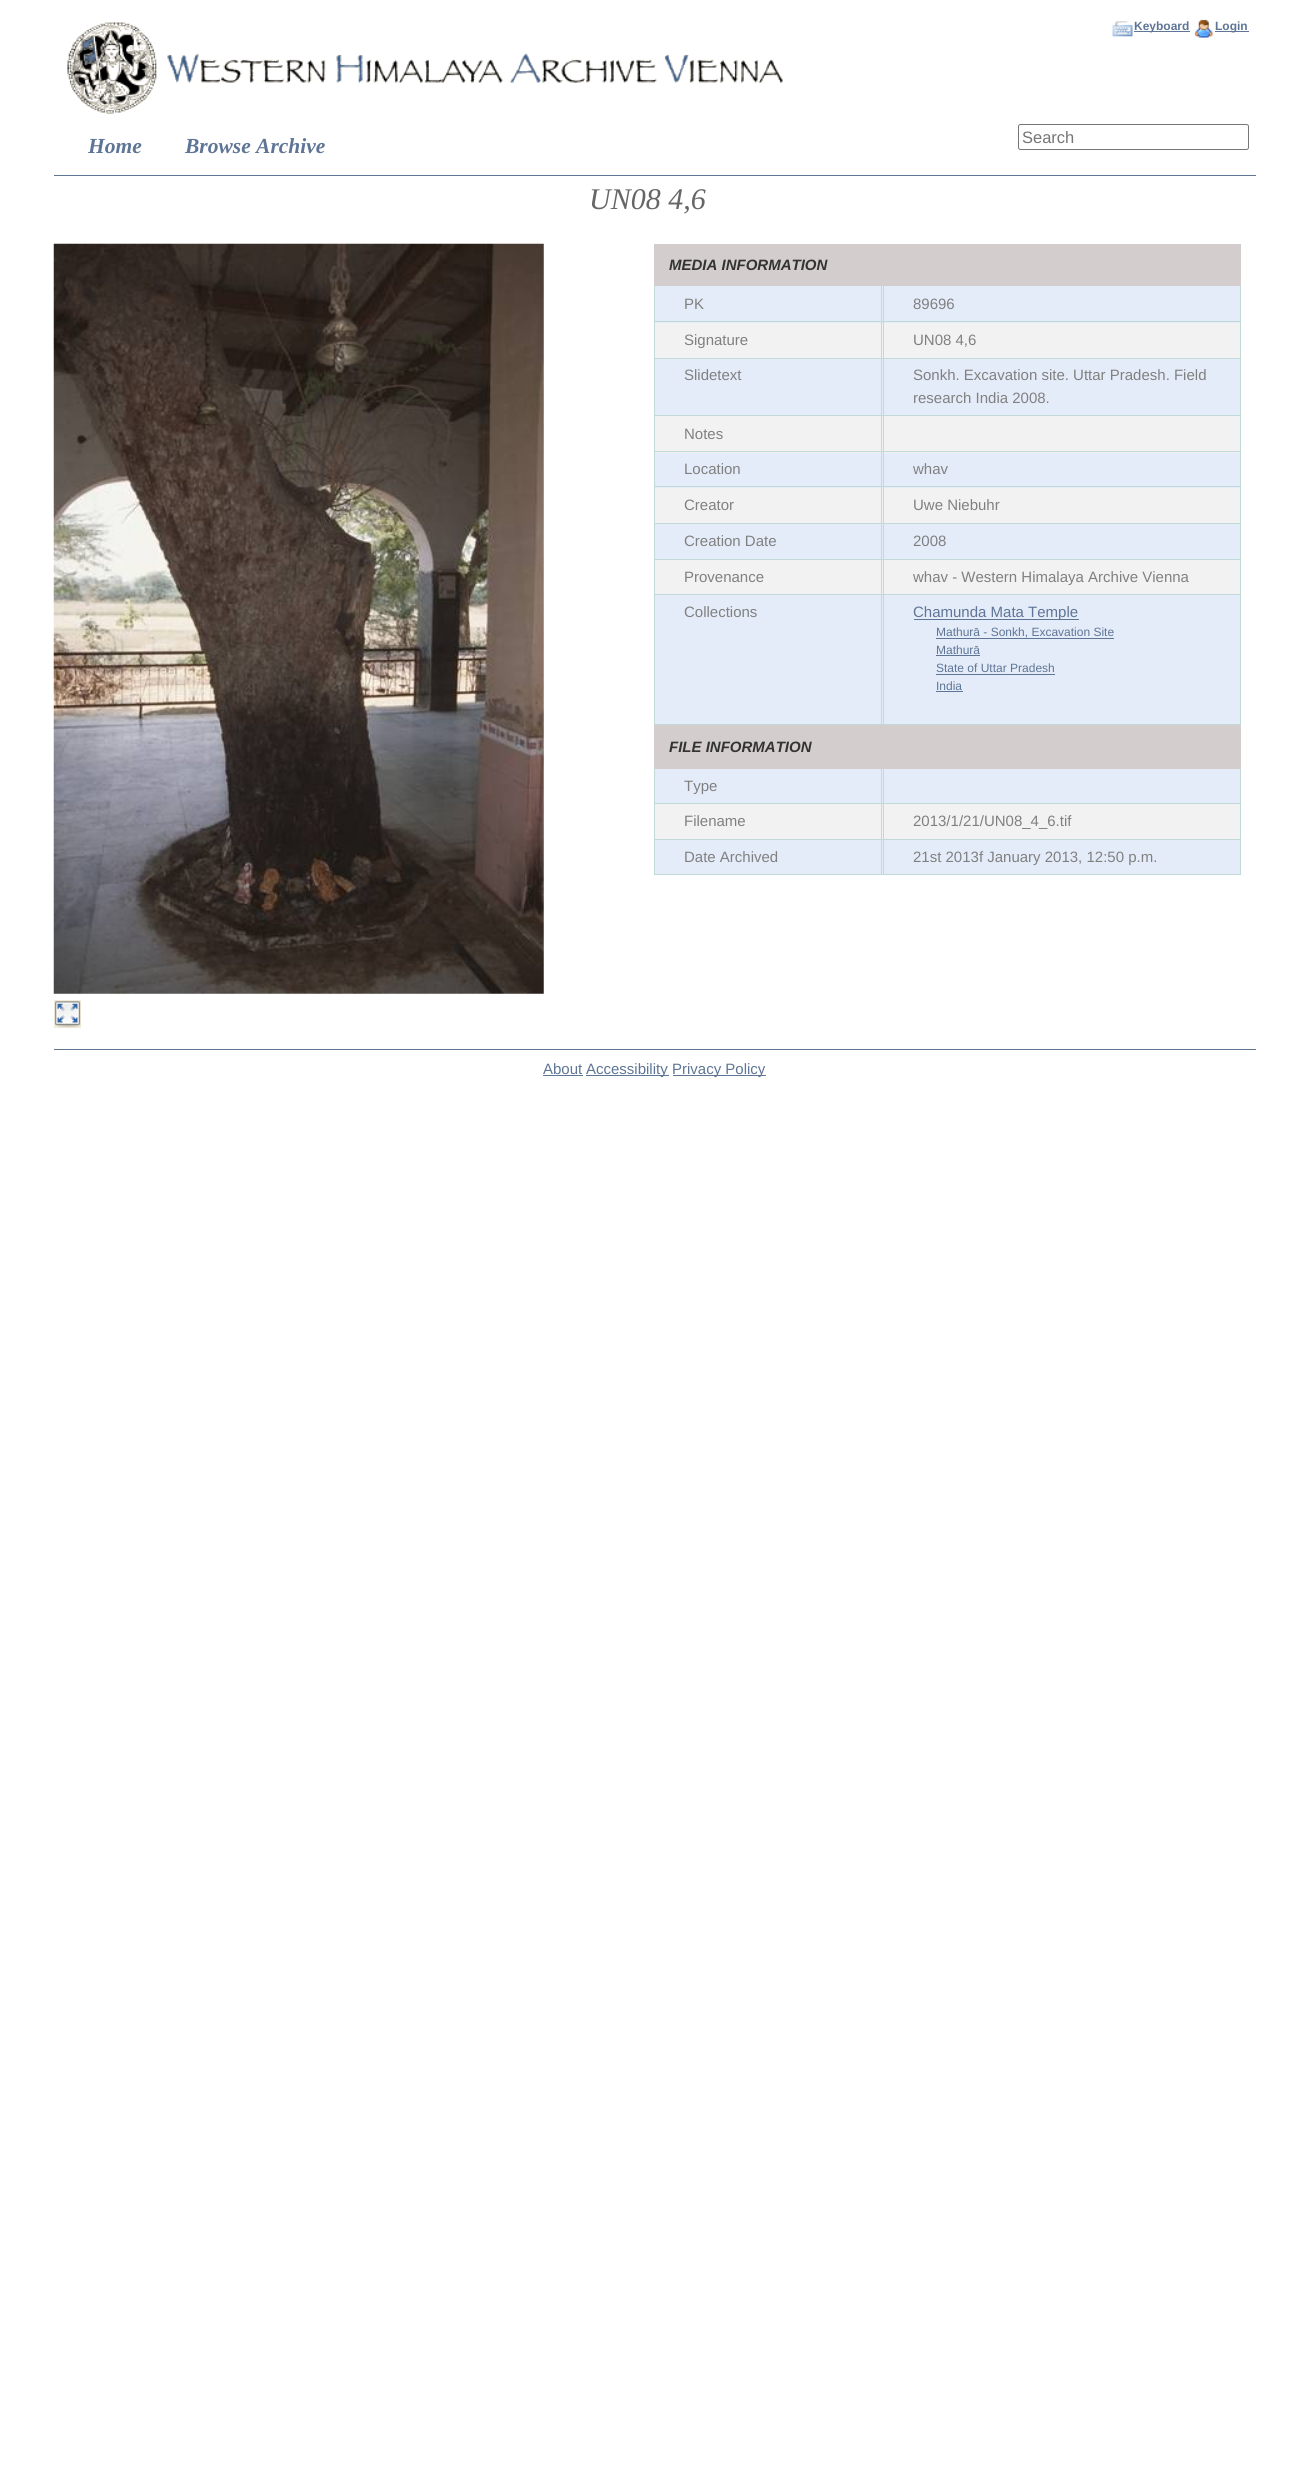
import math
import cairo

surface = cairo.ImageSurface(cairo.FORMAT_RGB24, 1293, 2487)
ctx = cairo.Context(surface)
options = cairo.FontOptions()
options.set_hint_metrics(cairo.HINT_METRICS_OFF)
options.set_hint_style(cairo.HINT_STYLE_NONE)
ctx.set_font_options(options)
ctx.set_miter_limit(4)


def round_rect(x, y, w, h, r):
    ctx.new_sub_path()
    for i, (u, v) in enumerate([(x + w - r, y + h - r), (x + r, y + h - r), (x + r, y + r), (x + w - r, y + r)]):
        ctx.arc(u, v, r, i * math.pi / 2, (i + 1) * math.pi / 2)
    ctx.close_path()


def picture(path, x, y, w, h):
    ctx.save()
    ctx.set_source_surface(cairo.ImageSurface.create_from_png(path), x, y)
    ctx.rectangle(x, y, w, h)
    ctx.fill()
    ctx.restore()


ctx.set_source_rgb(1, 1, 1)
ctx.paint()
ctx.set_source_rgb(0.369, 0.459, 0.588)
ctx.rectangle(54, 175, 1202, 1)
ctx.fill()
picture("img1.png", 67, 22, 716, 92)
picture("img2.png", 1112, 21, 21, 16)
ctx.rectangle(1134, 31, 56, 1)
ctx.fill()
ctx.select_font_face("Liberation Sans", cairo.FONT_SLANT_NORMAL, cairo.FONT_WEIGHT_BOLD)
ctx.set_font_size(12)
ctx.move_to(1134, 30)
ctx.show_text("Keyboard")
picture("img3.png", 1194, 19, 19, 19)
ctx.rectangle(1215, 31, 34, 1)
ctx.fill()
ctx.move_to(1215, 30)
ctx.show_text("Login")
ctx.select_font_face("Liberation Serif", cairo.FONT_SLANT_ITALIC, cairo.FONT_WEIGHT_BOLD)
ctx.set_font_size(21.5)
ctx.move_to(88, 153)
ctx.show_text("Home")
ctx.move_to(185, 153)
ctx.show_text("Browse Archive")
round_rect(1018.5, 124.5, 230, 25, 2)
ctx.set_source_rgb(0.463, 0.463, 0.463)
ctx.set_line_width(1)
ctx.stroke()
ctx.select_font_face("Liberation Sans")
ctx.set_font_size(16.5)
ctx.set_source_rgb(0.459, 0.459, 0.459)
ctx.move_to(1022, 143)
ctx.show_text("Search")
ctx.select_font_face("Liberation Serif", cairo.FONT_SLANT_ITALIC)
ctx.set_font_size(30)
ctx.set_source_rgb(0.4, 0.4, 0.4)
ctx.move_to(589, 209)
ctx.show_text("UN08 4,6")
picture("img4.png", 53, 243, 491, 751)
ctx.set_source_rgb(0.953, 0.925, 0.863)
ctx.rectangle(54, 1000, 27, 28)
ctx.fill()
picture("img5.png", 54, 1001, 27, 27)
ctx.set_source_rgb(0.827, 0.804, 0.804)
ctx.rectangle(654, 244, 587, 42)
ctx.fill()
ctx.select_font_face("Liberation Sans", cairo.FONT_SLANT_ITALIC, cairo.FONT_WEIGHT_BOLD)
ctx.set_font_size(15)
ctx.set_source_rgb(0.2, 0.2, 0.2)
ctx.move_to(669, 270)
ctx.show_text("MEDIA INFORMATION")
ctx.set_source_rgb(0.898, 0.925, 0.976)
ctx.rectangle(655, 286, 228, 37)
ctx.fill()
ctx.set_source_rgb(0.757, 0.855, 0.843)
ctx.rectangle(881, 286, 1, 37)
ctx.fill()
ctx.rectangle(654, 321, 229, 1)
ctx.fill()
ctx.rectangle(654, 286, 1, 37)
ctx.fill()
ctx.select_font_face("Liberation Sans")
ctx.set_source_rgb(0.502, 0.502, 0.502)
ctx.move_to(684, 309)
ctx.show_text("PK")
ctx.set_source_rgb(0.898, 0.925, 0.976)
ctx.rectangle(884, 286, 356, 37)
ctx.fill()
ctx.set_source_rgb(0.757, 0.855, 0.843)
ctx.rectangle(1240, 286, 1, 439)
ctx.fill()
ctx.rectangle(883, 321, 358, 1)
ctx.fill()
ctx.rectangle(883, 286, 1, 37)
ctx.fill()
ctx.set_source_rgb(0.502, 0.502, 0.502)
ctx.move_to(913, 309)
ctx.show_text("89696")
ctx.set_source_rgb(0.949, 0.949, 0.949)
ctx.rectangle(655, 323, 228, 35)
ctx.fill()
ctx.set_source_rgb(0.757, 0.855, 0.843)
ctx.rectangle(881, 323, 1, 36)
ctx.fill()
ctx.rectangle(654, 358, 587, 1)
ctx.fill()
ctx.rectangle(654, 323, 1, 36)
ctx.fill()
ctx.set_source_rgb(0.502, 0.502, 0.502)
ctx.move_to(684, 345)
ctx.show_text("Signature")
ctx.set_source_rgb(0.949, 0.949, 0.949)
ctx.rectangle(884, 323, 356, 35)
ctx.fill()
ctx.set_source_rgb(0.757, 0.855, 0.843)
ctx.rectangle(883, 323, 1, 36)
ctx.fill()
ctx.set_source_rgb(0.502, 0.502, 0.502)
ctx.move_to(913, 345)
ctx.show_text("UN08 4,6")
ctx.set_source_rgb(0.898, 0.925, 0.976)
ctx.rectangle(655, 359, 228, 56)
ctx.fill()
ctx.set_source_rgb(0.757, 0.855, 0.843)
ctx.rectangle(881, 359, 1, 57)
ctx.fill()
ctx.rectangle(654, 415, 587, 1)
ctx.fill()
ctx.rectangle(654, 359, 1, 57)
ctx.fill()
ctx.set_source_rgb(0.502, 0.502, 0.502)
ctx.move_to(684, 380)
ctx.show_text("Slidetext")
ctx.set_source_rgb(0.898, 0.925, 0.976)
ctx.rectangle(884, 359, 356, 56)
ctx.fill()
ctx.set_source_rgb(0.757, 0.855, 0.843)
ctx.rectangle(883, 359, 1, 57)
ctx.fill()
ctx.set_source_rgb(0.502, 0.502, 0.502)
ctx.move_to(913, 380)
ctx.show_text("Sonkh. Excavation site. Uttar Pradesh. Field")
ctx.move_to(913, 403)
ctx.show_text("research India 2008.")
ctx.set_source_rgb(0.949, 0.949, 0.949)
ctx.rectangle(655, 416, 228, 37)
ctx.fill()
ctx.set_source_rgb(0.757, 0.855, 0.843)
ctx.rectangle(881, 416, 1, 37)
ctx.fill()
ctx.rectangle(654, 451, 229, 1)
ctx.fill()
ctx.rectangle(654, 416, 1, 37)
ctx.fill()
ctx.set_source_rgb(0.502, 0.502, 0.502)
ctx.move_to(684, 439)
ctx.show_text("Notes")
ctx.set_source_rgb(0.949, 0.949, 0.949)
ctx.rectangle(884, 416, 356, 37)
ctx.fill()
ctx.set_source_rgb(0.757, 0.855, 0.843)
ctx.rectangle(883, 451, 358, 1)
ctx.fill()
ctx.rectangle(883, 416, 1, 37)
ctx.fill()
ctx.set_source_rgb(0.898, 0.925, 0.976)
ctx.rectangle(655, 453, 228, 35)
ctx.fill()
ctx.set_source_rgb(0.757, 0.855, 0.843)
ctx.rectangle(881, 453, 1, 35)
ctx.fill()
ctx.rectangle(654, 486, 229, 1)
ctx.fill()
ctx.rectangle(654, 453, 1, 35)
ctx.fill()
ctx.set_source_rgb(0.502, 0.502, 0.502)
ctx.move_to(684, 474)
ctx.show_text("Location")
ctx.set_source_rgb(0.898, 0.925, 0.976)
ctx.rectangle(884, 453, 356, 35)
ctx.fill()
ctx.set_source_rgb(0.757, 0.855, 0.843)
ctx.rectangle(883, 486, 358, 1)
ctx.fill()
ctx.rectangle(883, 453, 1, 35)
ctx.fill()
ctx.set_source_rgb(0.502, 0.502, 0.502)
ctx.move_to(913, 474)
ctx.show_text("whav")
ctx.set_source_rgb(0.949, 0.949, 0.949)
ctx.rectangle(655, 488, 228, 35)
ctx.fill()
ctx.set_source_rgb(0.757, 0.855, 0.843)
ctx.rectangle(881, 488, 1, 36)
ctx.fill()
ctx.rectangle(654, 523, 587, 1)
ctx.fill()
ctx.rectangle(654, 488, 1, 36)
ctx.fill()
ctx.set_source_rgb(0.502, 0.502, 0.502)
ctx.move_to(684, 510)
ctx.show_text("Creator")
ctx.set_source_rgb(0.949, 0.949, 0.949)
ctx.rectangle(884, 488, 356, 35)
ctx.fill()
ctx.set_source_rgb(0.757, 0.855, 0.843)
ctx.rectangle(883, 488, 1, 36)
ctx.fill()
ctx.set_source_rgb(0.502, 0.502, 0.502)
ctx.move_to(913, 510)
ctx.show_text("Uwe Niebuhr")
ctx.set_source_rgb(0.898, 0.925, 0.976)
ctx.rectangle(655, 524, 228, 35)
ctx.fill()
ctx.set_source_rgb(0.757, 0.855, 0.843)
ctx.rectangle(881, 524, 1, 36)
ctx.fill()
ctx.rectangle(654, 559, 587, 1)
ctx.fill()
ctx.rectangle(654, 524, 1, 36)
ctx.fill()
ctx.set_source_rgb(0.502, 0.502, 0.502)
ctx.move_to(684, 546)
ctx.show_text("Creation Date")
ctx.set_source_rgb(0.898, 0.925, 0.976)
ctx.rectangle(884, 524, 356, 35)
ctx.fill()
ctx.set_source_rgb(0.757, 0.855, 0.843)
ctx.rectangle(883, 524, 1, 36)
ctx.fill()
ctx.set_source_rgb(0.502, 0.502, 0.502)
ctx.move_to(913, 546)
ctx.show_text("2008")
ctx.set_source_rgb(0.949, 0.949, 0.949)
ctx.rectangle(655, 560, 228, 34)
ctx.fill()
ctx.set_source_rgb(0.757, 0.855, 0.843)
ctx.rectangle(881, 560, 1, 35)
ctx.fill()
ctx.rectangle(654, 594, 587, 1)
ctx.fill()
ctx.rectangle(654, 560, 1, 35)
ctx.fill()
ctx.set_source_rgb(0.502, 0.502, 0.502)
ctx.move_to(684, 582)
ctx.show_text("Provenance")
ctx.set_source_rgb(0.949, 0.949, 0.949)
ctx.rectangle(884, 560, 356, 34)
ctx.fill()
ctx.set_source_rgb(0.757, 0.855, 0.843)
ctx.rectangle(883, 560, 1, 35)
ctx.fill()
ctx.set_source_rgb(0.502, 0.502, 0.502)
ctx.move_to(913, 582)
ctx.show_text("whav - Western Himalaya Archive Vienna")
ctx.set_source_rgb(0.898, 0.925, 0.976)
ctx.rectangle(655, 595, 228, 129)
ctx.fill()
ctx.set_source_rgb(0.757, 0.855, 0.843)
ctx.rectangle(881, 595, 1, 130)
ctx.fill()
ctx.rectangle(654, 724, 587, 1)
ctx.fill()
ctx.rectangle(654, 595, 1, 130)
ctx.fill()
ctx.set_source_rgb(0.502, 0.502, 0.502)
ctx.move_to(684, 617)
ctx.show_text("Collections")
ctx.set_source_rgb(0.898, 0.925, 0.976)
ctx.rectangle(884, 595, 356, 129)
ctx.fill()
ctx.set_source_rgb(0.757, 0.855, 0.843)
ctx.rectangle(883, 595, 1, 130)
ctx.fill()
ctx.set_source_rgb(0.369, 0.459, 0.588)
ctx.rectangle(914, 619, 165, 1)
ctx.fill()
ctx.move_to(913, 617)
ctx.show_text("Chamunda Mata Temple")
ctx.set_font_size(12)
ctx.move_to(936, 636)
ctx.show_text("Mathurā - Sonkh, Excavation Site")
ctx.rectangle(936, 638, 178, 1)
ctx.fill()
ctx.move_to(936, 654)
ctx.show_text("Mathurā")
ctx.rectangle(936, 655, 44, 1)
ctx.fill()
ctx.move_to(936, 672)
ctx.show_text("State of Uttar Pradesh")
ctx.rectangle(936, 674, 119, 1)
ctx.fill()
ctx.move_to(936, 690)
ctx.show_text("India")
ctx.rectangle(936, 691, 27, 1)
ctx.fill()
ctx.set_source_rgb(0.827, 0.804, 0.804)
ctx.rectangle(654, 725, 587, 44)
ctx.fill()
ctx.select_font_face("Liberation Sans", cairo.FONT_SLANT_ITALIC, cairo.FONT_WEIGHT_BOLD)
ctx.set_font_size(15)
ctx.set_source_rgb(0.2, 0.2, 0.2)
ctx.move_to(669, 752)
ctx.show_text("FILE INFORMATION")
ctx.set_source_rgb(0.898, 0.925, 0.976)
ctx.rectangle(655, 769, 228, 34)
ctx.fill()
ctx.set_source_rgb(0.757, 0.855, 0.843)
ctx.rectangle(881, 769, 1, 35)
ctx.fill()
ctx.rectangle(654, 803, 229, 1)
ctx.fill()
ctx.rectangle(654, 769, 1, 35)
ctx.fill()
ctx.select_font_face("Liberation Sans")
ctx.set_source_rgb(0.502, 0.502, 0.502)
ctx.move_to(684, 791)
ctx.show_text("Type")
ctx.set_source_rgb(0.898, 0.925, 0.976)
ctx.rectangle(884, 769, 356, 34)
ctx.fill()
ctx.set_source_rgb(0.757, 0.855, 0.843)
ctx.rectangle(1240, 769, 1, 106)
ctx.fill()
ctx.rectangle(883, 803, 358, 1)
ctx.fill()
ctx.rectangle(883, 769, 1, 35)
ctx.fill()
ctx.set_source_rgb(0.949, 0.949, 0.949)
ctx.rectangle(655, 804, 228, 35)
ctx.fill()
ctx.set_source_rgb(0.757, 0.855, 0.843)
ctx.rectangle(881, 804, 1, 36)
ctx.fill()
ctx.rectangle(654, 839, 587, 1)
ctx.fill()
ctx.rectangle(654, 804, 1, 36)
ctx.fill()
ctx.set_source_rgb(0.502, 0.502, 0.502)
ctx.move_to(684, 826)
ctx.show_text("Filename")
ctx.set_source_rgb(0.949, 0.949, 0.949)
ctx.rectangle(884, 804, 356, 35)
ctx.fill()
ctx.set_source_rgb(0.757, 0.855, 0.843)
ctx.rectangle(883, 804, 1, 36)
ctx.fill()
ctx.set_source_rgb(0.502, 0.502, 0.502)
ctx.move_to(913, 826)
ctx.show_text("2013/1/21/UN08_4_6.tif")
ctx.set_source_rgb(0.898, 0.925, 0.976)
ctx.rectangle(655, 840, 228, 34)
ctx.fill()
ctx.set_source_rgb(0.757, 0.855, 0.843)
ctx.rectangle(881, 840, 1, 35)
ctx.fill()
ctx.rectangle(654, 874, 587, 1)
ctx.fill()
ctx.rectangle(654, 840, 1, 35)
ctx.fill()
ctx.set_source_rgb(0.502, 0.502, 0.502)
ctx.move_to(684, 862)
ctx.show_text("Date Archived")
ctx.set_source_rgb(0.898, 0.925, 0.976)
ctx.rectangle(884, 840, 356, 34)
ctx.fill()
ctx.set_source_rgb(0.757, 0.855, 0.843)
ctx.rectangle(883, 840, 1, 35)
ctx.fill()
ctx.set_source_rgb(0.502, 0.502, 0.502)
ctx.move_to(913, 862)
ctx.show_text("21st 2013f January 2013, 12:50 p.m.")
ctx.set_source_rgb(0.369, 0.459, 0.588)
ctx.rectangle(54, 1049, 1202, 1)
ctx.fill()
ctx.move_to(543, 1074)
ctx.show_text("About")
ctx.rectangle(543, 1075, 40, 1)
ctx.fill()
ctx.rectangle(586, 1075, 83, 1)
ctx.fill()
ctx.move_to(586, 1074)
ctx.show_text("Accessibility")
ctx.rectangle(673, 1075, 93, 1)
ctx.fill()
ctx.move_to(672, 1074)
ctx.show_text("Privacy Policy")
surface.write_to_png("page.png")
